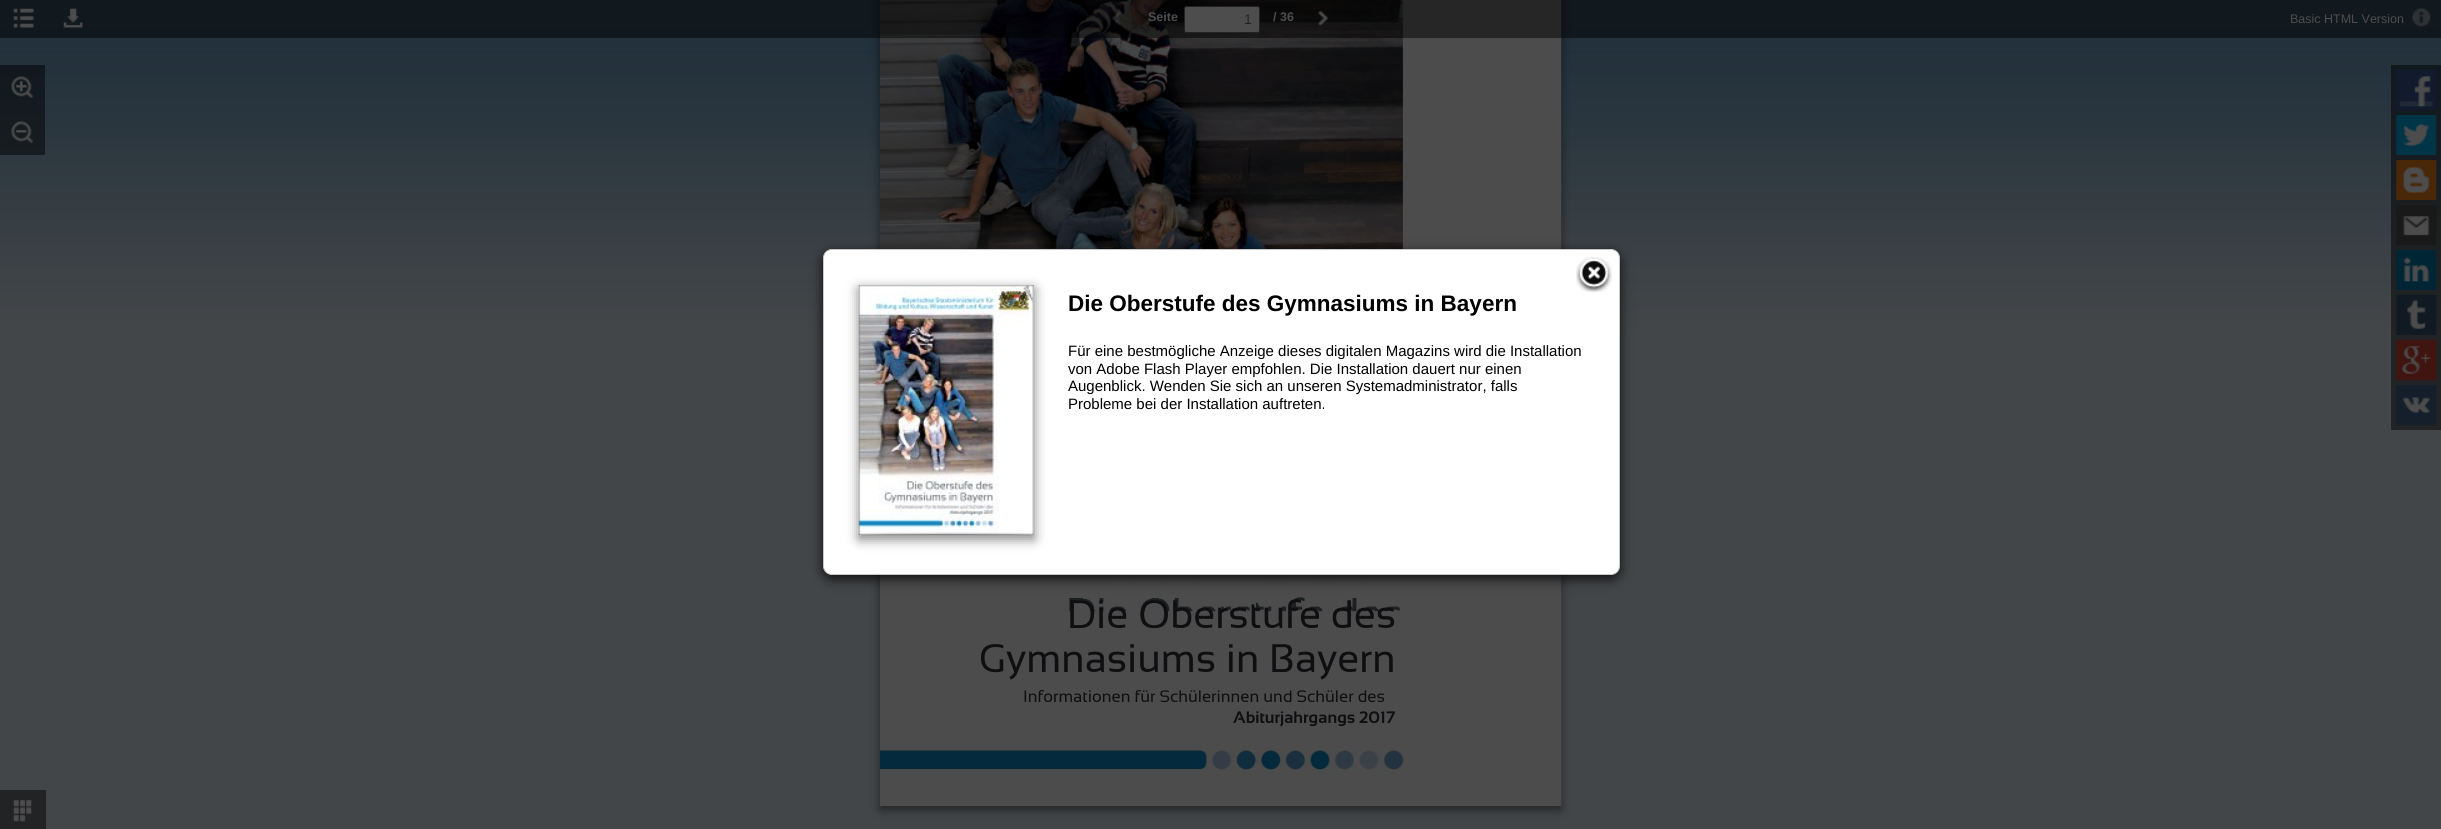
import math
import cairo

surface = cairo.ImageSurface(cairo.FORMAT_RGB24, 2441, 829)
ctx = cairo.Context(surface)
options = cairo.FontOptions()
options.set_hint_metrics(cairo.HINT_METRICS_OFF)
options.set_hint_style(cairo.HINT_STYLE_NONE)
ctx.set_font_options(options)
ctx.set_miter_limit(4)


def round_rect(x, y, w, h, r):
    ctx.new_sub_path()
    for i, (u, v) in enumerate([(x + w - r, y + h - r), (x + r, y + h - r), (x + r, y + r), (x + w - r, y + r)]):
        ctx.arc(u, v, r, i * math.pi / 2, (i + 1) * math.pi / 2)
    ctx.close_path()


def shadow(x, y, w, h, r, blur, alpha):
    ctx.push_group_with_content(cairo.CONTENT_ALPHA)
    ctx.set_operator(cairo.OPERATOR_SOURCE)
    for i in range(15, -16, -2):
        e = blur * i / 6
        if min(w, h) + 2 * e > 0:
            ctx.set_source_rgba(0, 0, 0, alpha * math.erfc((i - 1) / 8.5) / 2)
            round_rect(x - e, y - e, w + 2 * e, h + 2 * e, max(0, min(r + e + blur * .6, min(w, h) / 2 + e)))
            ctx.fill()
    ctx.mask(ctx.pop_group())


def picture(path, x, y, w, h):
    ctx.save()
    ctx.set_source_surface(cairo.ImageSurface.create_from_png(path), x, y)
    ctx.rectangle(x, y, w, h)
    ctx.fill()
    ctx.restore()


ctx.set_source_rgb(1, 1, 1)
ctx.paint()
picture("img1.png", 0, 0, 2441, 829)
ctx.set_source_rgb(0, 0, 0)
shadow(880, -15, 681, 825, 0, 5, 0.5)
picture("img19.png", 880, 0, 682, 805)
ctx.set_source_rgba(0, 0, 0, 0.5)
ctx.rectangle(0, 0, 2441, 38)
ctx.fill()
picture("img2.png", 13, 8, 21, 20)
picture("img3.png", 63, 7, 20, 21)
picture("img4.png", 1111, 11, 11, 15)
ctx.select_font_face("Liberation Sans", cairo.FONT_SLANT_NORMAL, cairo.FONT_WEIGHT_BOLD)
ctx.set_font_size(12.5)
ctx.set_source_rgb(0.302, 0.302, 0.302)
ctx.move_to(1148, 21)
ctx.show_text("Seite")
round_rect(1184.5, 6.5, 75, 26, 2)
ctx.fill_preserve()
ctx.set_source_rgb(0.137, 0.137, 0.137)
ctx.set_line_width(1)
ctx.stroke()
ctx.select_font_face("Liberation Sans")
ctx.set_font_size(14)
ctx.move_to(1244, 24)
ctx.show_text("1")
ctx.select_font_face("Liberation Sans", cairo.FONT_SLANT_NORMAL, cairo.FONT_WEIGHT_BOLD)
ctx.set_font_size(12.5)
ctx.set_source_rgb(0.302, 0.302, 0.302)
ctx.move_to(1273, 21)
ctx.show_text("/ 36")
picture("img5.png", 1318, 11, 10, 15)
ctx.select_font_face("Liberation Sans")
ctx.move_to(2290, 23)
ctx.show_text("Basic HTML Version")
picture("img6.png", 2411, 7, 20, 20)
ctx.set_source_rgba(0, 0, 0, 0.5)
ctx.rectangle(0, 65, 45, 90)
ctx.fill()
picture("img7.png", 11, 76, 23, 23)
picture("img8.png", 11, 121, 23, 23)
ctx.set_source_rgb(0, 0, 0)
shadow(823, 253, 797, 326, 9, 6, 0.8)
ctx.set_source_rgb(1, 1, 1)
round_rect(823.5, 249.5, 796, 325, 8.5)
ctx.fill_preserve()
ctx.set_source_rgb(0.784, 0.784, 0.784)
ctx.stroke()
ctx.set_source_rgb(0, 0, 0)
shadow(859, 289, 175, 250, 0, 6, 0.5)
picture("img9.png", 858, 285, 176, 250)
ctx.select_font_face("Liberation Sans", cairo.FONT_SLANT_NORMAL, cairo.FONT_WEIGHT_BOLD)
ctx.set_font_size(22.5)
ctx.set_source_rgb(0, 0, 0)
ctx.move_to(1068, 311)
ctx.show_text("Die Oberstufe des Gymnasiums in Bayern")
ctx.select_font_face("Liberation Sans")
ctx.set_font_size(15)
ctx.move_to(1068, 356)
ctx.show_text("Für eine bestmögliche Anzeige dieses digitalen Magazins wird die Installation")
ctx.move_to(1068, 374)
ctx.show_text("von Adobe Flash Player empfohlen. Die Installation dauert nur einen")
ctx.move_to(1068, 391)
ctx.show_text("Augenblick. Wenden Sie sich an unseren Systemadministrator, falls")
ctx.move_to(1068, 409)
ctx.show_text("Probleme bei der Installation auftreten.")
picture("img10.png", 1576, 257, 36, 36)
ctx.set_source_rgba(0, 0, 0, 0.5)
ctx.rectangle(2391, 65, 50, 365)
ctx.fill()
picture("img11.png", 2396, 70, 41, 40)
picture("img12.png", 2396, 115, 41, 40)
picture("img13.png", 2396, 160, 41, 40)
picture("img14.png", 2396, 205, 41, 40)
picture("img15.png", 2396, 250, 41, 40)
picture("img16.png", 2396, 295, 41, 40)
picture("img17.png", 2396, 340, 41, 40)
picture("img18.png", 2396, 385, 41, 40)
ctx.set_source_rgb(0.302, 0.302, 0.302)
ctx.rectangle(880, 805, 681, 1)
ctx.fill()
ctx.select_font_face("Sansation")
ctx.set_font_size(39.75)
ctx.set_source_rgb(0.059, 0.059, 0.067)
ctx.move_to(1067, 628)
ctx.show_text("Die Oberstufe des")
ctx.move_to(979, 672)
ctx.show_text("Gymnasiums in Bayern")
ctx.set_font_size(16.6)
ctx.move_to(1023, 702)
ctx.show_text("Informationen für Schülerinnen und Schüler des")
ctx.select_font_face("Sansation", cairo.FONT_SLANT_NORMAL, cairo.FONT_WEIGHT_BOLD)
ctx.move_to(1233, 723)
ctx.show_text("Abiturjahrgangs 2017")
ctx.set_source_rgb(0.133, 0.137, 0.145)
ctx.rectangle(0, 790, 46, 39)
ctx.fill()
picture("img20.png", 13, 799, 19, 23)
surface.write_to_png("page.png")
